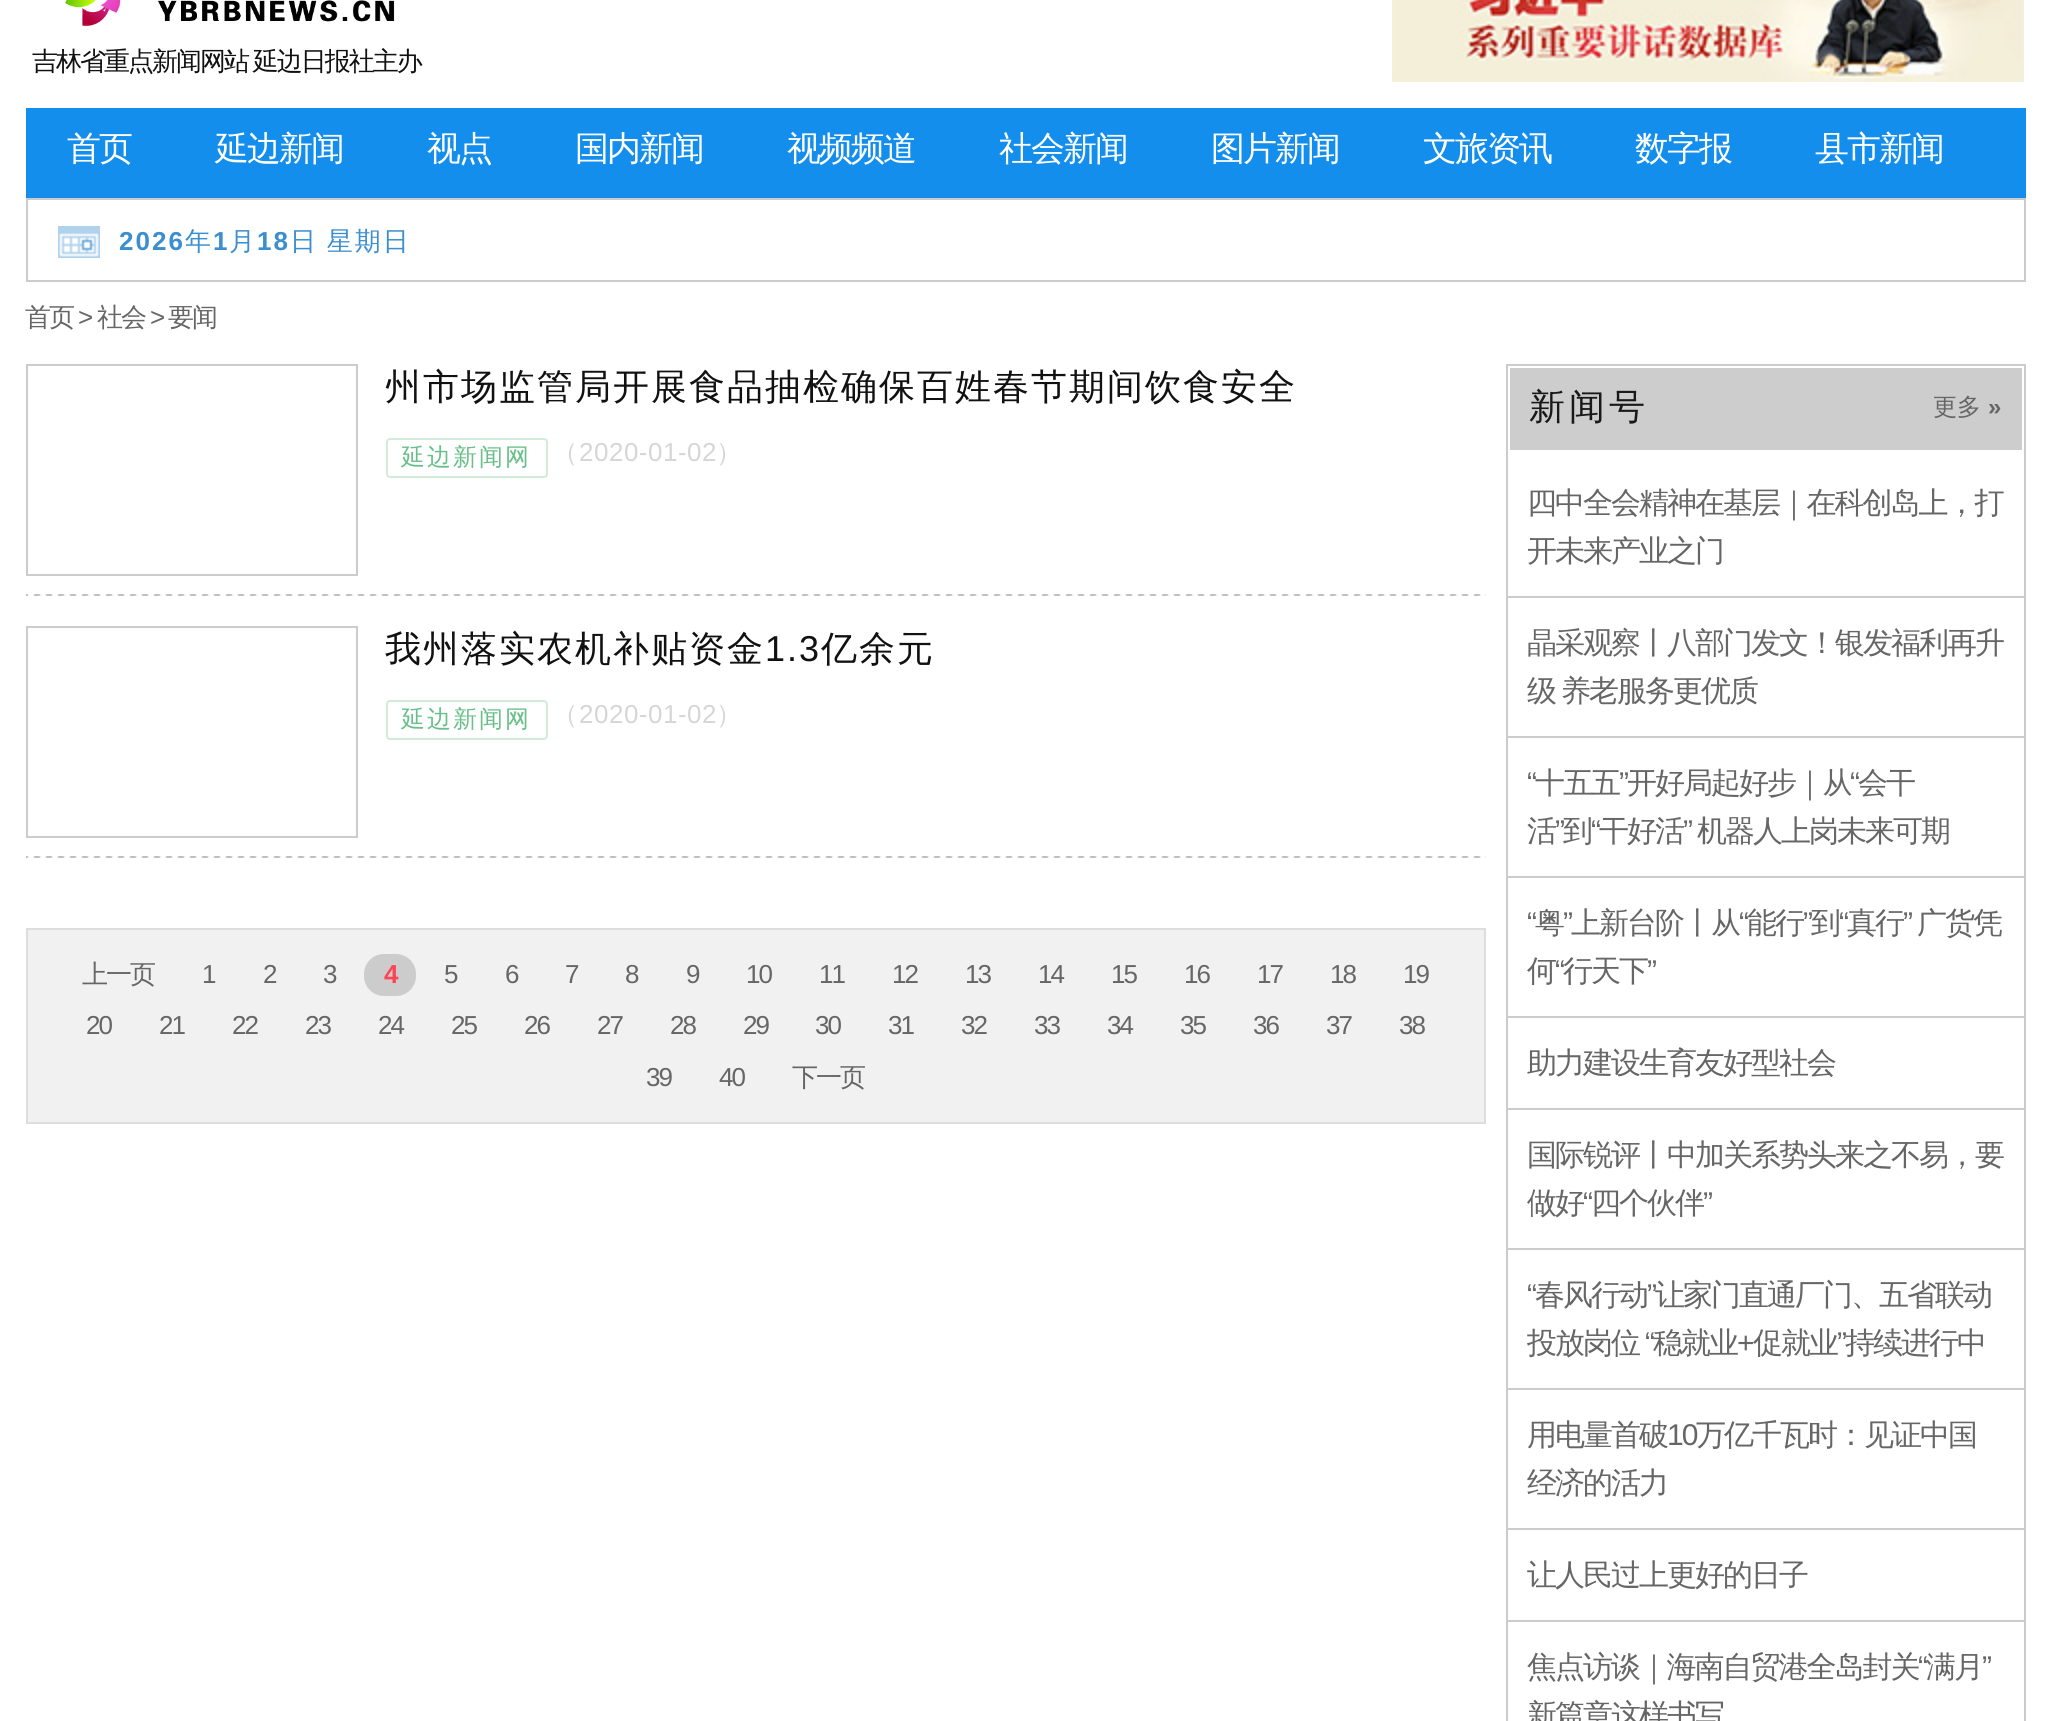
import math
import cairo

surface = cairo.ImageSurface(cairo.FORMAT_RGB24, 2049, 1721)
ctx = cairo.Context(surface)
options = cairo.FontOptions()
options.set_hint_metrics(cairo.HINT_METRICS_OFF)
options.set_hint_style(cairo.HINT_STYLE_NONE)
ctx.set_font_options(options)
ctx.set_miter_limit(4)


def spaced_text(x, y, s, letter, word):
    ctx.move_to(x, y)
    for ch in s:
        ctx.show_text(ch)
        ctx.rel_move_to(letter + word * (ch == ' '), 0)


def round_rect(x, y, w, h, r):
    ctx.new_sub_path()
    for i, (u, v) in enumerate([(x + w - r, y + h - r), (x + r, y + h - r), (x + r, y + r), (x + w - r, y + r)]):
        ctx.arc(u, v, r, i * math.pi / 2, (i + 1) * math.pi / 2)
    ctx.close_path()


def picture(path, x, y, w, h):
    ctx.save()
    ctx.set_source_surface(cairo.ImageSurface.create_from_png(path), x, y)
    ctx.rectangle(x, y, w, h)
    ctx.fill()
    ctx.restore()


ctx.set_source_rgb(1, 1, 1)
ctx.paint()
picture("img1.png", 65, 0, 330, 27)
ctx.select_font_face("WenQuanYi Zen Hei Medium")
ctx.set_font_size(26)
ctx.set_source_rgb(0.067, 0.067, 0.067)
spaced_text(32, 70, "吉林省重点新闻网站 延边日报社主办", -2, -1)
picture("img2.png", 1392, 0, 632, 82)
ctx.set_source_rgb(0.078, 0.557, 0.922)
ctx.rectangle(26, 108, 2000, 90)
ctx.fill()
ctx.set_font_size(34)
ctx.set_source_rgb(1, 1, 1)
spaced_text(67, 160, "首页", -2, 0)
spaced_text(215, 160, "延边新闻", -2, 0)
spaced_text(427, 160, "视点", -2, 0)
spaced_text(575, 160, "国内新闻", -2, 0)
spaced_text(787, 160, "视频频道", -2, 0)
spaced_text(999, 160, "社会新闻", -2, 0)
spaced_text(1211, 160, "图片新闻", -2, 0)
spaced_text(1423, 160, "文旅资讯", -2, 0)
spaced_text(1635, 160, "数字报", -2, 0)
spaced_text(1815, 160, "县市新闻", -2, 0)
ctx.rectangle(27, 199, 1998, 82)
ctx.set_source_rgb(0.8, 0.8, 0.8)
ctx.stroke()
picture("img3.png", 58, 226, 42, 32)
ctx.select_font_face("Liberation Sans", cairo.FONT_SLANT_NORMAL, cairo.FONT_WEIGHT_BOLD)
ctx.set_font_size(26)
ctx.set_source_rgb(0.231, 0.561, 0.82)
spaced_text(119, 250, "2026", 2, 0)
ctx.select_font_face("WenQuanYi Zen Hei Medium")
spaced_text(185, 250, "年", 2, 0)
ctx.select_font_face("Liberation Sans", cairo.FONT_SLANT_NORMAL, cairo.FONT_WEIGHT_BOLD)
spaced_text(213, 250, "1", 2, 0)
ctx.select_font_face("WenQuanYi Zen Hei Medium")
spaced_text(229, 250, "月", 2, 0)
ctx.select_font_face("Liberation Sans", cairo.FONT_SLANT_NORMAL, cairo.FONT_WEIGHT_BOLD)
spaced_text(257, 250, "18", 2, 0)
ctx.select_font_face("WenQuanYi Zen Hei Medium")
spaced_text(290, 250, "日 星期日", 2, -1)
ctx.set_source_rgb(0.4, 0.4, 0.4)
spaced_text(25, 326, "首页", -2, 0)
ctx.select_font_face("Liberation Sans")
spaced_text(78, 326, ">", -2, 0)
ctx.select_font_face("WenQuanYi Zen Hei Medium")
spaced_text(97, 326, "社会", -2, 0)
ctx.select_font_face("Liberation Sans")
spaced_text(150, 326, ">", -2, 0)
ctx.select_font_face("WenQuanYi Zen Hei Medium")
spaced_text(168, 326, "要闻", -2, 0)
ctx.rectangle(27, 365, 330, 210)
ctx.set_source_rgb(0.8, 0.8, 0.8)
ctx.stroke()
ctx.set_font_size(36)
ctx.set_source_rgb(0.067, 0.067, 0.067)
spaced_text(385, 399, "州市场监管局开展食品抽检确保百姓春节期间饮食安全", 2, 0)
round_rect(387, 439, 160, 38, 3)
ctx.set_source_rgb(0.824, 0.925, 0.859)
ctx.stroke()
ctx.set_font_size(24)
ctx.set_source_rgb(0.412, 0.749, 0.537)
spaced_text(401, 465, "延边新闻网", 2, 0)
ctx.set_font_size(26)
ctx.set_source_rgb(0.839, 0.839, 0.839)
spaced_text(552, 461, "（", 0.5, 0)
ctx.select_font_face("Liberation Sans")
spaced_text(579, 461, "2020-01-02", 0.5, 0)
ctx.select_font_face("WenQuanYi Zen Hei Medium")
spaced_text(716, 461, "）", 0.5, 0)
picture("img4.png", 26, 594, 1460, 2)
ctx.rectangle(27, 627, 330, 210)
ctx.set_source_rgb(0.8, 0.8, 0.8)
ctx.stroke()
ctx.set_font_size(36)
ctx.set_source_rgb(0.067, 0.067, 0.067)
spaced_text(385, 661, "我州落实农机补贴资金", 2, 0)
ctx.select_font_face("Liberation Sans")
spaced_text(765, 661, "1.3", 2, 0)
ctx.select_font_face("WenQuanYi Zen Hei Medium")
spaced_text(821, 661, "亿余元", 2, 0)
round_rect(387, 701, 160, 38, 3)
ctx.set_source_rgb(0.824, 0.925, 0.859)
ctx.stroke()
ctx.set_font_size(24)
ctx.set_source_rgb(0.412, 0.749, 0.537)
spaced_text(401, 727, "延边新闻网", 2, 0)
ctx.set_font_size(26)
ctx.set_source_rgb(0.839, 0.839, 0.839)
spaced_text(552, 723, "（", 0.5, 0)
ctx.select_font_face("Liberation Sans")
spaced_text(579, 723, "2020-01-02", 0.5, 0)
ctx.select_font_face("WenQuanYi Zen Hei Medium")
spaced_text(716, 723, "）", 0.5, 0)
picture("img4.png", 26, 856, 1460, 2)
ctx.set_source_rgb(0.945, 0.945, 0.945)
ctx.rectangle(27, 929, 1458, 194)
ctx.fill_preserve()
ctx.set_source_rgb(0.867, 0.867, 0.867)
ctx.stroke()
ctx.set_source_rgb(0.4, 0.4, 0.4)
spaced_text(82, 983, "上一页", -2, 0)
ctx.select_font_face("Liberation Sans")
spaced_text(202, 983, "1", -2, 0)
spaced_text(263, 983, "2", -2, 0)
spaced_text(323, 983, "3", -2, 0)
ctx.set_source_rgb(0.8, 0.8, 0.8)
round_rect(364, 954, 52, 42, 20)
ctx.fill()
ctx.select_font_face("Liberation Sans", cairo.FONT_SLANT_NORMAL, cairo.FONT_WEIGHT_BOLD)
ctx.set_source_rgb(1, 0.267, 0.333)
spaced_text(384, 983, "4", -2, 0)
ctx.select_font_face("Liberation Sans")
ctx.set_source_rgb(0.4, 0.4, 0.4)
spaced_text(444, 983, "5", -2, 0)
spaced_text(505, 983, "6", -2, 0)
spaced_text(565, 983, "7", -2, 0)
spaced_text(625, 983, "8", -2, 0)
spaced_text(686, 983, "9", -2, 0)
spaced_text(746, 983, "10", -2, 0)
spaced_text(819, 983, "11", -2, 0)
spaced_text(892, 983, "12", -2, 0)
spaced_text(965, 983, "13", -2, 0)
spaced_text(1038, 983, "14", -2, 0)
spaced_text(1111, 983, "15", -2, 0)
spaced_text(1184, 983, "16", -2, 0)
spaced_text(1257, 983, "17", -2, 0)
spaced_text(1330, 983, "18", -2, 0)
spaced_text(1403, 983, "19", -2, 0)
spaced_text(86, 1034, "20", -2, 0)
spaced_text(159, 1034, "21", -2, 0)
spaced_text(232, 1034, "22", -2, 0)
spaced_text(305, 1034, "23", -2, 0)
spaced_text(378, 1034, "24", -2, 0)
spaced_text(451, 1034, "25", -2, 0)
spaced_text(524, 1034, "26", -2, 0)
spaced_text(597, 1034, "27", -2, 0)
spaced_text(670, 1034, "28", -2, 0)
spaced_text(743, 1034, "29", -2, 0)
spaced_text(815, 1034, "30", -2, 0)
spaced_text(888, 1034, "31", -2, 0)
spaced_text(961, 1034, "32", -2, 0)
spaced_text(1034, 1034, "33", -2, 0)
spaced_text(1107, 1034, "34", -2, 0)
spaced_text(1180, 1034, "35", -2, 0)
spaced_text(1253, 1034, "36", -2, 0)
spaced_text(1326, 1034, "37", -2, 0)
spaced_text(1399, 1034, "38", -2, 0)
spaced_text(646, 1086, "39", -2, 0)
spaced_text(719, 1086, "40", -2, 0)
ctx.select_font_face("WenQuanYi Zen Hei Medium")
spaced_text(792, 1086, "下一页", -2, 0)
ctx.rectangle(1507, 365, 518, 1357)
ctx.set_source_rgb(0.8, 0.8, 0.8)
ctx.stroke()
ctx.set_source_rgb(0.804, 0.804, 0.804)
ctx.rectangle(1510, 368, 512, 82)
ctx.fill()
ctx.set_font_size(36)
ctx.set_source_rgb(0.098, 0.098, 0.098)
spaced_text(1529, 419, "新闻号", 4, 0)
ctx.set_font_size(24)
ctx.set_source_rgb(0.4, 0.4, 0.4)
ctx.move_to(1933, 415)
ctx.show_text("更多")
ctx.select_font_face("Liberation Sans", cairo.FONT_SLANT_NORMAL, cairo.FONT_WEIGHT_BOLD)
ctx.move_to(1988, 415)
ctx.show_text("»")
ctx.select_font_face("WenQuanYi Zen Hei Medium")
ctx.set_font_size(30)
spaced_text(1527, 513, "四中全会精神在基层｜在科创岛上，打", -2, 0)
spaced_text(1527, 561, "开未来产业之门", -2, 0)
ctx.set_source_rgb(0.8, 0.8, 0.8)
ctx.rectangle(1508, 596, 516, 2)
ctx.fill()
ctx.set_source_rgb(0.4, 0.4, 0.4)
spaced_text(1527, 653, "晶采观察丨八部门发文！银发福利再升", -2, 0)
spaced_text(1527, 701, "级 养老服务更优质", -2, -1)
ctx.set_source_rgb(0.8, 0.8, 0.8)
ctx.rectangle(1508, 736, 516, 2)
ctx.fill()
ctx.select_font_face("Liberation Sans")
ctx.set_source_rgb(0.4, 0.4, 0.4)
spaced_text(1527, 793, "“", -2, 0)
ctx.select_font_face("WenQuanYi Zen Hei Medium")
spaced_text(1535, 793, "十五五", -2, 0)
ctx.select_font_face("Liberation Sans")
spaced_text(1619, 793, "”", -2, 0)
ctx.select_font_face("WenQuanYi Zen Hei Medium")
spaced_text(1627, 793, "开好局起好步｜从", -2, 0)
ctx.select_font_face("Liberation Sans")
spaced_text(1850, 793, "“", -2, 0)
ctx.select_font_face("WenQuanYi Zen Hei Medium")
spaced_text(1858, 793, "会干", -2, 0)
spaced_text(1527, 841, "活", -2, 0)
ctx.select_font_face("Liberation Sans")
spaced_text(1555, 841, "”", -2, 0)
ctx.select_font_face("WenQuanYi Zen Hei Medium")
spaced_text(1563, 841, "到", -2, 0)
ctx.select_font_face("Liberation Sans")
spaced_text(1591, 841, "“", -2, 0)
ctx.select_font_face("WenQuanYi Zen Hei Medium")
spaced_text(1599, 841, "干好活", -2, 0)
ctx.select_font_face("Liberation Sans")
spaced_text(1683, 841, "”", -2, 0)
ctx.select_font_face("WenQuanYi Zen Hei Medium")
spaced_text(1697, 841, "机器人上岗未来可期", -2, 0)
ctx.set_source_rgb(0.8, 0.8, 0.8)
ctx.rectangle(1508, 876, 516, 2)
ctx.fill()
ctx.select_font_face("Liberation Sans")
ctx.set_source_rgb(0.4, 0.4, 0.4)
spaced_text(1527, 933, "“", -2, 0)
ctx.select_font_face("WenQuanYi Zen Hei Medium")
spaced_text(1535, 933, "粤", -2, 0)
ctx.select_font_face("Liberation Sans")
spaced_text(1563, 933, "”", -2, 0)
ctx.select_font_face("WenQuanYi Zen Hei Medium")
spaced_text(1571, 933, "上新台阶丨从", -2, 0)
ctx.select_font_face("Liberation Sans")
spaced_text(1739, 933, "“", -2, 0)
ctx.select_font_face("WenQuanYi Zen Hei Medium")
spaced_text(1747, 933, "能行", -2, 0)
ctx.select_font_face("Liberation Sans")
spaced_text(1803, 933, "”", -2, 0)
ctx.select_font_face("WenQuanYi Zen Hei Medium")
spaced_text(1811, 933, "到", -2, 0)
ctx.select_font_face("Liberation Sans")
spaced_text(1839, 933, "“", -2, 0)
ctx.select_font_face("WenQuanYi Zen Hei Medium")
spaced_text(1847, 933, "真行", -2, 0)
ctx.select_font_face("Liberation Sans")
spaced_text(1903, 933, "”", -2, 0)
ctx.select_font_face("WenQuanYi Zen Hei Medium")
spaced_text(1917, 933, "广货凭", -2, 0)
spaced_text(1527, 981, "何", -2, 0)
ctx.select_font_face("Liberation Sans")
spaced_text(1555, 981, "“", -2, 0)
ctx.select_font_face("WenQuanYi Zen Hei Medium")
spaced_text(1563, 981, "行天下", -2, 0)
ctx.select_font_face("Liberation Sans")
spaced_text(1647, 981, "”", -2, 0)
ctx.set_source_rgb(0.8, 0.8, 0.8)
ctx.rectangle(1508, 1016, 516, 2)
ctx.fill()
ctx.select_font_face("WenQuanYi Zen Hei Medium")
ctx.set_source_rgb(0.4, 0.4, 0.4)
spaced_text(1527, 1073, "助力建设生育友好型社会", -2, 0)
ctx.set_source_rgb(0.8, 0.8, 0.8)
ctx.rectangle(1508, 1108, 516, 2)
ctx.fill()
ctx.set_source_rgb(0.4, 0.4, 0.4)
spaced_text(1527, 1165, "国际锐评丨中加关系势头来之不易，要", -2, 0)
spaced_text(1527, 1213, "做好", -2, 0)
ctx.select_font_face("Liberation Sans")
spaced_text(1583, 1213, "“", -2, 0)
ctx.select_font_face("WenQuanYi Zen Hei Medium")
spaced_text(1591, 1213, "四个伙伴", -2, 0)
ctx.select_font_face("Liberation Sans")
spaced_text(1703, 1213, "”", -2, 0)
ctx.set_source_rgb(0.8, 0.8, 0.8)
ctx.rectangle(1508, 1248, 516, 2)
ctx.fill()
ctx.set_source_rgb(0.4, 0.4, 0.4)
spaced_text(1527, 1305, "“", -2, 0)
ctx.select_font_face("WenQuanYi Zen Hei Medium")
spaced_text(1535, 1305, "春风行动", -2, 0)
ctx.select_font_face("Liberation Sans")
spaced_text(1647, 1305, "”", -2, 0)
ctx.select_font_face("WenQuanYi Zen Hei Medium")
spaced_text(1655, 1305, "让家门直通厂门、五省联动", -2, 0)
spaced_text(1527, 1353, "投放岗位", -2, 0)
ctx.select_font_face("Liberation Sans")
spaced_text(1645, 1353, "“", -2, 0)
ctx.select_font_face("WenQuanYi Zen Hei Medium")
spaced_text(1653, 1353, "稳就业", -2, 0)
ctx.select_font_face("Liberation Sans")
spaced_text(1737, 1353, "+", -2, 0)
ctx.select_font_face("WenQuanYi Zen Hei Medium")
spaced_text(1753, 1353, "促就业", -2, 0)
ctx.select_font_face("Liberation Sans")
spaced_text(1837, 1353, "”", -2, 0)
ctx.select_font_face("WenQuanYi Zen Hei Medium")
spaced_text(1845, 1353, "持续进行中", -2, 0)
ctx.set_source_rgb(0.8, 0.8, 0.8)
ctx.rectangle(1508, 1388, 516, 2)
ctx.fill()
ctx.set_source_rgb(0.4, 0.4, 0.4)
spaced_text(1527, 1445, "用电量首破", -2, 0)
ctx.select_font_face("Liberation Sans")
spaced_text(1667, 1445, "10", -2, 0)
ctx.select_font_face("WenQuanYi Zen Hei Medium")
spaced_text(1696, 1445, "万亿千瓦时：见证中国", -2, 0)
spaced_text(1527, 1493, "经济的活力", -2, 0)
ctx.set_source_rgb(0.8, 0.8, 0.8)
ctx.rectangle(1508, 1528, 516, 2)
ctx.fill()
ctx.set_source_rgb(0.4, 0.4, 0.4)
spaced_text(1527, 1585, "让人民过上更好的日子", -2, 0)
ctx.set_source_rgb(0.8, 0.8, 0.8)
ctx.rectangle(1508, 1620, 516, 2)
ctx.fill()
ctx.set_source_rgb(0.4, 0.4, 0.4)
spaced_text(1527, 1677, "焦点访谈｜海南自贸港全岛封关", -2, 0)
ctx.select_font_face("Liberation Sans")
spaced_text(1918, 1677, "“", -2, 0)
ctx.select_font_face("WenQuanYi Zen Hei Medium")
spaced_text(1926, 1677, "满月", -2, 0)
ctx.select_font_face("Liberation Sans")
spaced_text(1982, 1677, "”", -2, 0)
ctx.select_font_face("WenQuanYi Zen Hei Medium")
spaced_text(1527, 1725, "新篇章这样书写", -2, 0)
surface.write_to_png("page.png")
